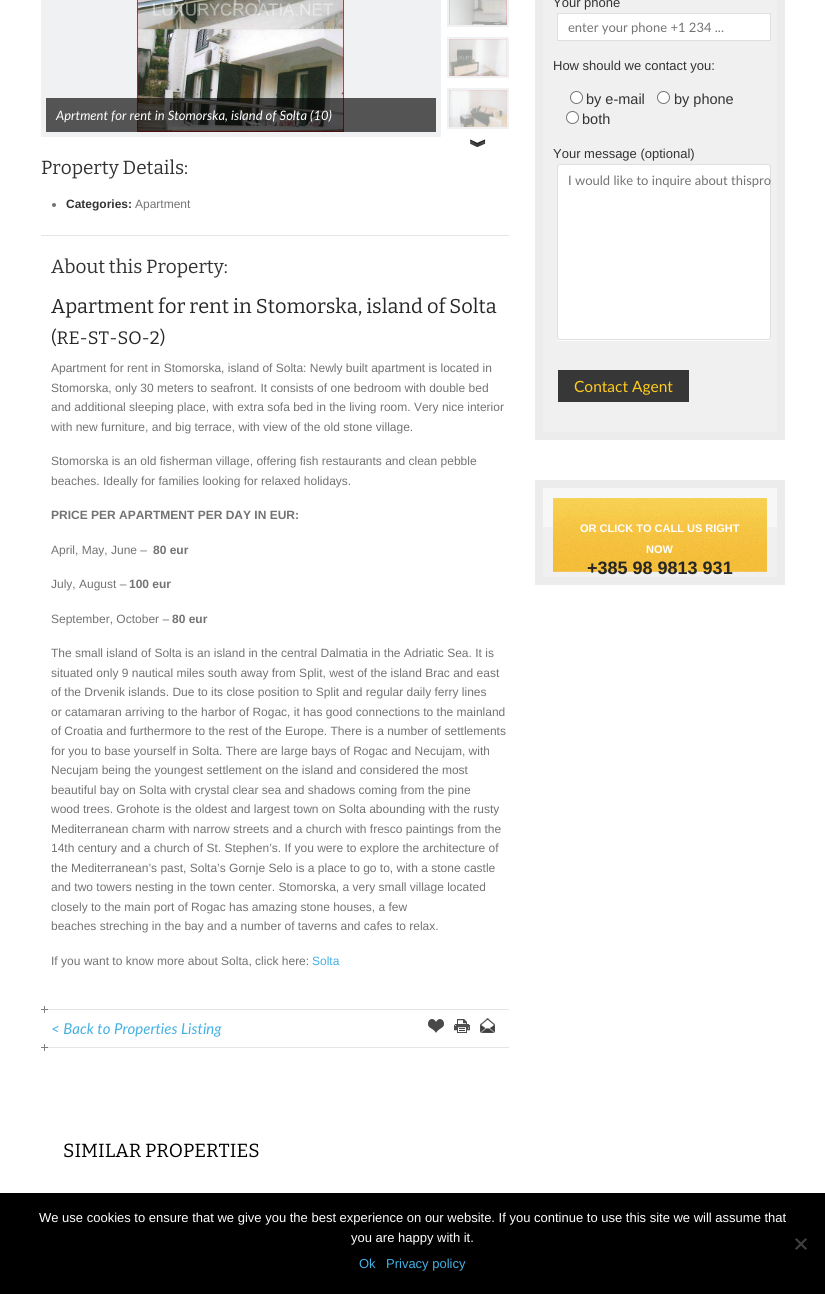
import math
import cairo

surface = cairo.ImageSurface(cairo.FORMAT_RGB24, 825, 1294)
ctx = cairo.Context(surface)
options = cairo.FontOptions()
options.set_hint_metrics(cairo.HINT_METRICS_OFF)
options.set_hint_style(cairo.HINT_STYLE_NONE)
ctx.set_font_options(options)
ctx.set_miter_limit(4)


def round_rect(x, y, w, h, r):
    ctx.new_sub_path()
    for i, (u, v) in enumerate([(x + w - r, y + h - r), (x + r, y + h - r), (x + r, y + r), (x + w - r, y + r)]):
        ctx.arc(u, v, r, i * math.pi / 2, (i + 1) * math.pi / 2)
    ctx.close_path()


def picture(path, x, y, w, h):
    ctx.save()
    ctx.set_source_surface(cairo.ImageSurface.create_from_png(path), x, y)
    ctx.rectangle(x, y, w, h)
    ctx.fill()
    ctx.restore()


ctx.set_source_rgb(1, 1, 1)
ctx.paint()
ctx.set_source_rgb(0.941, 0.945, 0.949)
ctx.rectangle(41, 0, 400, 137)
ctx.fill()
picture("img1.png", 137, 0, 207, 132)
ctx.set_source_rgba(0, 0, 0, 0.65)
ctx.rectangle(46, 98, 390, 34)
ctx.fill()
ctx.select_font_face("Lato", cairo.FONT_SLANT_ITALIC)
ctx.set_font_size(13)
ctx.set_source_rgb(1, 1, 1)
ctx.move_to(56, 120)
ctx.show_text("Aprtment for rent in Stomorska, island of Solta (10)")
ctx.set_source_rgb(0.941, 0.945, 0.949)
ctx.rectangle(447, 0, 62, 27)
ctx.fill()
picture("img2.png", 449, 0, 58, 25)
ctx.rectangle(447, 37, 62, 41)
ctx.fill()
picture("img3.png", 449, 39, 58, 37)
ctx.rectangle(447, 88, 62, 41)
ctx.fill()
picture("img4.png", 449, 90, 58, 37)
picture("img5.png", 470, 139, 16, 9)
ctx.set_source_rgb(0.898, 0.898, 0.898)
ctx.rectangle(41, 235, 468, 1)
ctx.fill()
ctx.select_font_face("Bitter")
ctx.set_font_size(19)
ctx.set_source_rgb(0.2, 0.2, 0.2)
ctx.move_to(41, 174)
ctx.show_text("Property Details:")
ctx.set_source_rgb(0.451, 0.451, 0.451)
ctx.new_path()
ctx.arc(54, 205, 2, 0, 2 * math.pi)
ctx.fill()
ctx.select_font_face("Liberation Sans", cairo.FONT_SLANT_NORMAL, cairo.FONT_WEIGHT_BOLD)
ctx.set_font_size(12)
ctx.set_source_rgb(0.2, 0.2, 0.2)
ctx.move_to(66, 208)
ctx.show_text("Categories:")
ctx.select_font_face("Liberation Sans")
ctx.set_source_rgb(0.451, 0.451, 0.451)
ctx.move_to(135, 208)
ctx.show_text("Apartment")
ctx.select_font_face("Bitter")
ctx.set_font_size(19)
ctx.set_source_rgb(0.2, 0.2, 0.2)
ctx.move_to(51, 273)
ctx.show_text("About this Property:")
ctx.set_font_size(20)
ctx.set_source_rgb(0.149, 0.149, 0.149)
ctx.move_to(51, 313)
ctx.show_text("Apartment for rent in Stomorska, island of Solta")
ctx.set_font_size(18)
ctx.move_to(51, 344)
ctx.show_text("(RE-ST-SO-2)")
ctx.select_font_face("Liberation Sans")
ctx.set_font_size(12)
ctx.set_source_rgb(0.451, 0.451, 0.451)
ctx.move_to(51, 372)
ctx.show_text("Apartment for rent in Stomorska, island of Solta: Newly built apartment is located in")
ctx.move_to(51, 392)
ctx.show_text("Stomorska, only 30 meters to seafront. It consists of one bedroom with double bed")
ctx.move_to(51, 411)
ctx.show_text("and additional sleeping place, with extra sofa bed in the living room. Very nice interior")
ctx.move_to(51, 431)
ctx.show_text("with new furniture, and big terrace, with view of the old stone village.")
ctx.move_to(51, 465)
ctx.show_text("Stomorska is an old fisherman village, offering fish restaurants and clean pebble")
ctx.move_to(51, 485)
ctx.show_text("beaches. Ideally for families looking for relaxed holidays.")
ctx.select_font_face("Liberation Sans", cairo.FONT_SLANT_NORMAL, cairo.FONT_WEIGHT_BOLD)
ctx.move_to(51, 519)
ctx.show_text("PRICE PER APARTMENT PER DAY IN EUR:")
ctx.select_font_face("Liberation Sans")
ctx.move_to(51, 554)
ctx.show_text("April, May, June –")
ctx.select_font_face("Liberation Sans", cairo.FONT_SLANT_NORMAL, cairo.FONT_WEIGHT_BOLD)
ctx.move_to(153, 554)
ctx.show_text("80 eur")
ctx.select_font_face("Liberation Sans")
ctx.move_to(51, 588)
ctx.show_text("July, August –")
ctx.select_font_face("Liberation Sans", cairo.FONT_SLANT_NORMAL, cairo.FONT_WEIGHT_BOLD)
ctx.move_to(129, 588)
ctx.show_text("100 eur")
ctx.select_font_face("Liberation Sans")
ctx.move_to(51, 623)
ctx.show_text("September, October –")
ctx.select_font_face("Liberation Sans", cairo.FONT_SLANT_NORMAL, cairo.FONT_WEIGHT_BOLD)
ctx.move_to(172, 623)
ctx.show_text("80 eur")
ctx.select_font_face("Liberation Sans")
ctx.move_to(51, 657)
ctx.show_text("The small island of Solta is an island in the central Dalmatia in the Adriatic Sea. It is")
ctx.move_to(51, 677)
ctx.show_text("situated only 9 nautical miles south away from Split, west of the island Brac and east")
ctx.move_to(51, 696)
ctx.show_text("of the Drvenik islands. Due to its close position to Split and regular daily ferry lines")
ctx.move_to(51, 716)
ctx.show_text("or catamaran arriving to the harbor of Rogac, it has good connections to the mainland")
ctx.move_to(51, 735)
ctx.show_text("of Croatia and furthermore to the rest of the Europe. There is a number of settlements")
ctx.move_to(51, 755)
ctx.show_text("for you to base yourself in Solta. There are large bays of Rogac and Necujam, with")
ctx.move_to(51, 774)
ctx.show_text("Necujam being the youngest settlement on the island and considered the most")
ctx.move_to(51, 794)
ctx.show_text("beautiful bay on Solta with crystal clear sea and shadows coming from the pine")
ctx.move_to(51, 813)
ctx.show_text("wood trees. Grohote is the oldest and largest town on Solta abounding with the rusty")
ctx.move_to(51, 833)
ctx.show_text("Mediterranean charm with narrow streets and a church with fresco paintings from the")
ctx.move_to(51, 852)
ctx.show_text("14th century and a church of St. Stephen’s. If you were to explore the architecture of")
ctx.move_to(51, 872)
ctx.show_text("the Mediterranean’s past, Solta’s Gornje Selo is a place to go to, with a stone castle")
ctx.move_to(51, 891)
ctx.show_text("and two towers nesting in the town center. Stomorska, a very small village located")
ctx.move_to(51, 911)
ctx.show_text("closely to the main port of Rogac has amazing stone houses, a few")
ctx.move_to(51, 930)
ctx.show_text("beaches streching in the bay and a number of taverns and cafes to relax.")
ctx.move_to(51, 965)
ctx.show_text("If you want to know more about Solta, click here:")
ctx.set_source_rgb(0.259, 0.69, 0.89)
ctx.move_to(312, 965)
ctx.show_text("Solta")
picture("img6.png", 41, 1044, 468, 7)
picture("img6.png", 41, 1006, 468, 7)
ctx.select_font_face("Lato", cairo.FONT_SLANT_ITALIC)
ctx.set_font_size(15)
ctx.move_to(51, 1034)
ctx.show_text("< Back to Properties Listing")
picture("img7.png", 428, 1019, 16, 14)
picture("img8.png", 454, 1019, 16, 14)
picture("img9.png", 480, 1018, 15, 15)
ctx.rectangle(539, -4, 242, 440)
ctx.set_source_rgb(0.922, 0.922, 0.922)
ctx.set_line_width(8)
ctx.stroke()
ctx.set_source_rgb(0.941, 0.941, 0.941)
ctx.rectangle(543, 0, 234, 432)
ctx.fill()
ctx.select_font_face("Liberation Sans")
ctx.set_font_size(13)
ctx.set_source_rgb(0.2, 0.2, 0.2)
ctx.move_to(553, 7)
ctx.show_text("Your phone")
ctx.set_source_rgb(1, 1, 1)
ctx.rectangle(557.5, 13.5, 213, 27)
ctx.fill_preserve()
ctx.set_source_rgb(0.875, 0.875, 0.875)
ctx.set_line_width(1)
ctx.stroke()
ctx.select_font_face("Lato")
ctx.set_source_rgb(0.451, 0.451, 0.451)
ctx.move_to(568, 32)
ctx.show_text("enter your phone +1 234 ...")
ctx.select_font_face("Liberation Sans")
ctx.set_source_rgb(0.2, 0.2, 0.2)
ctx.move_to(553, 70)
ctx.show_text("How should we contact you:")
ctx.set_source_rgb(1, 1, 1)
ctx.new_path()
ctx.arc(576.5, 97.5, 6, 0, 2 * math.pi)
ctx.fill_preserve()
ctx.set_source_rgb(0.463, 0.463, 0.463)
ctx.stroke()
ctx.set_font_size(14.5)
ctx.set_source_rgb(0.2, 0.2, 0.2)
ctx.move_to(586, 104)
ctx.show_text("by e-mail")
ctx.set_source_rgb(1, 1, 1)
ctx.new_path()
ctx.arc(663.5, 97.5, 6, 0, 2 * math.pi)
ctx.fill_preserve()
ctx.set_source_rgb(0.463, 0.463, 0.463)
ctx.stroke()
ctx.set_source_rgb(0.2, 0.2, 0.2)
ctx.move_to(674, 104)
ctx.show_text("by phone")
ctx.set_source_rgb(1, 1, 1)
ctx.new_path()
ctx.arc(572.5, 117.5, 6, 0, 2 * math.pi)
ctx.fill_preserve()
ctx.set_source_rgb(0.463, 0.463, 0.463)
ctx.stroke()
ctx.set_source_rgb(0.2, 0.2, 0.2)
ctx.move_to(582, 124)
ctx.show_text("both")
ctx.set_font_size(13)
ctx.move_to(553, 158)
ctx.show_text("Your message (optional)")
ctx.set_source_rgb(1, 1, 1)
ctx.new_path()
ctx.move_to(557, 337)
ctx.line_to(557, 338)
ctx.curve_to(557, 340, 558, 341, 560, 341)
ctx.line_to(768, 341)
ctx.curve_to(770, 341, 771, 340, 771, 338)
ctx.line_to(771, 337)
ctx.curve_to(771, 339, 770, 340, 768, 340)
ctx.line_to(560, 340)
ctx.curve_to(558, 340, 557, 339, 557, 337)
ctx.close_path()
ctx.fill()
round_rect(557.5, 164.5, 213, 175, 2.5)
ctx.fill_preserve()
ctx.set_source_rgb(0.875, 0.875, 0.875)
ctx.stroke()
ctx.select_font_face("Lato")
ctx.set_source_rgb(0.451, 0.451, 0.451)
ctx.move_to(568, 185)
ctx.show_text("I would like to inquire about thispro")
ctx.set_source_rgb(0.216, 0.216, 0.216)
ctx.rectangle(558, 370, 131, 32)
ctx.fill()
ctx.set_font_size(15.5)
ctx.set_source_rgb(1, 0.8, 0.114)
ctx.move_to(574, 392)
ctx.show_text("Contact Agent")
ctx.rectangle(539, 484, 242, 97)
ctx.set_source_rgb(0.922, 0.922, 0.922)
ctx.set_line_width(8)
ctx.stroke()
ctx.set_source_rgb(0.941, 0.941, 0.941)
ctx.rectangle(543, 527, 234, 50)
ctx.fill()
ctx.set_source_rgb(0.965, 0.965, 0.965)
ctx.rectangle(543, 488, 234, 39)
ctx.fill()
picture("img10.png", 553, 498, 214, 74)
ctx.select_font_face("Liberation Sans", cairo.FONT_SLANT_NORMAL, cairo.FONT_WEIGHT_BOLD)
ctx.set_font_size(11)
ctx.set_source_rgb(1, 1, 1)
ctx.move_to(580, 532)
ctx.show_text("OR CLICK TO CALL US RIGHT")
ctx.move_to(646, 553)
ctx.show_text("NOW")
ctx.set_font_size(18)
ctx.set_source_rgb(0.149, 0.149, 0.149)
ctx.move_to(587, 574)
ctx.show_text("+385 98 9813 931")
ctx.select_font_face("Bitter")
ctx.set_font_size(19)
ctx.set_source_rgb(0, 0, 0)
ctx.move_to(63, 1157)
ctx.show_text("SIMILAR PROPERTIES")
ctx.rectangle(0, 1193, 825, 101)
ctx.fill()
ctx.select_font_face("Liberation Sans")
ctx.set_font_size(13)
ctx.set_source_rgb(1, 1, 1)
ctx.move_to(39, 1222)
ctx.show_text("We use cookies to ensure that we give you the best experience on our website. If you continue to use this site we will assume that")
ctx.move_to(351, 1242)
ctx.show_text("you are happy with it.")
ctx.set_source_rgb(0.251, 0.251, 0.251)
ctx.new_path()
ctx.move_to(805.5, 1238)
ctx.line_to(807, 1239.5)
ctx.line_to(796.5, 1250)
ctx.line_to(795, 1248.5)
ctx.close_path()
ctx.fill()
ctx.new_path()
ctx.move_to(795, 1239.5)
ctx.line_to(796.5, 1238)
ctx.line_to(807, 1248.5)
ctx.line_to(805.5, 1250)
ctx.close_path()
ctx.fill()
ctx.set_source_rgb(0.259, 0.69, 0.89)
ctx.move_to(359, 1268)
ctx.show_text("Ok")
ctx.move_to(386, 1268)
ctx.show_text("Privacy policy")
surface.write_to_png("page.png")
